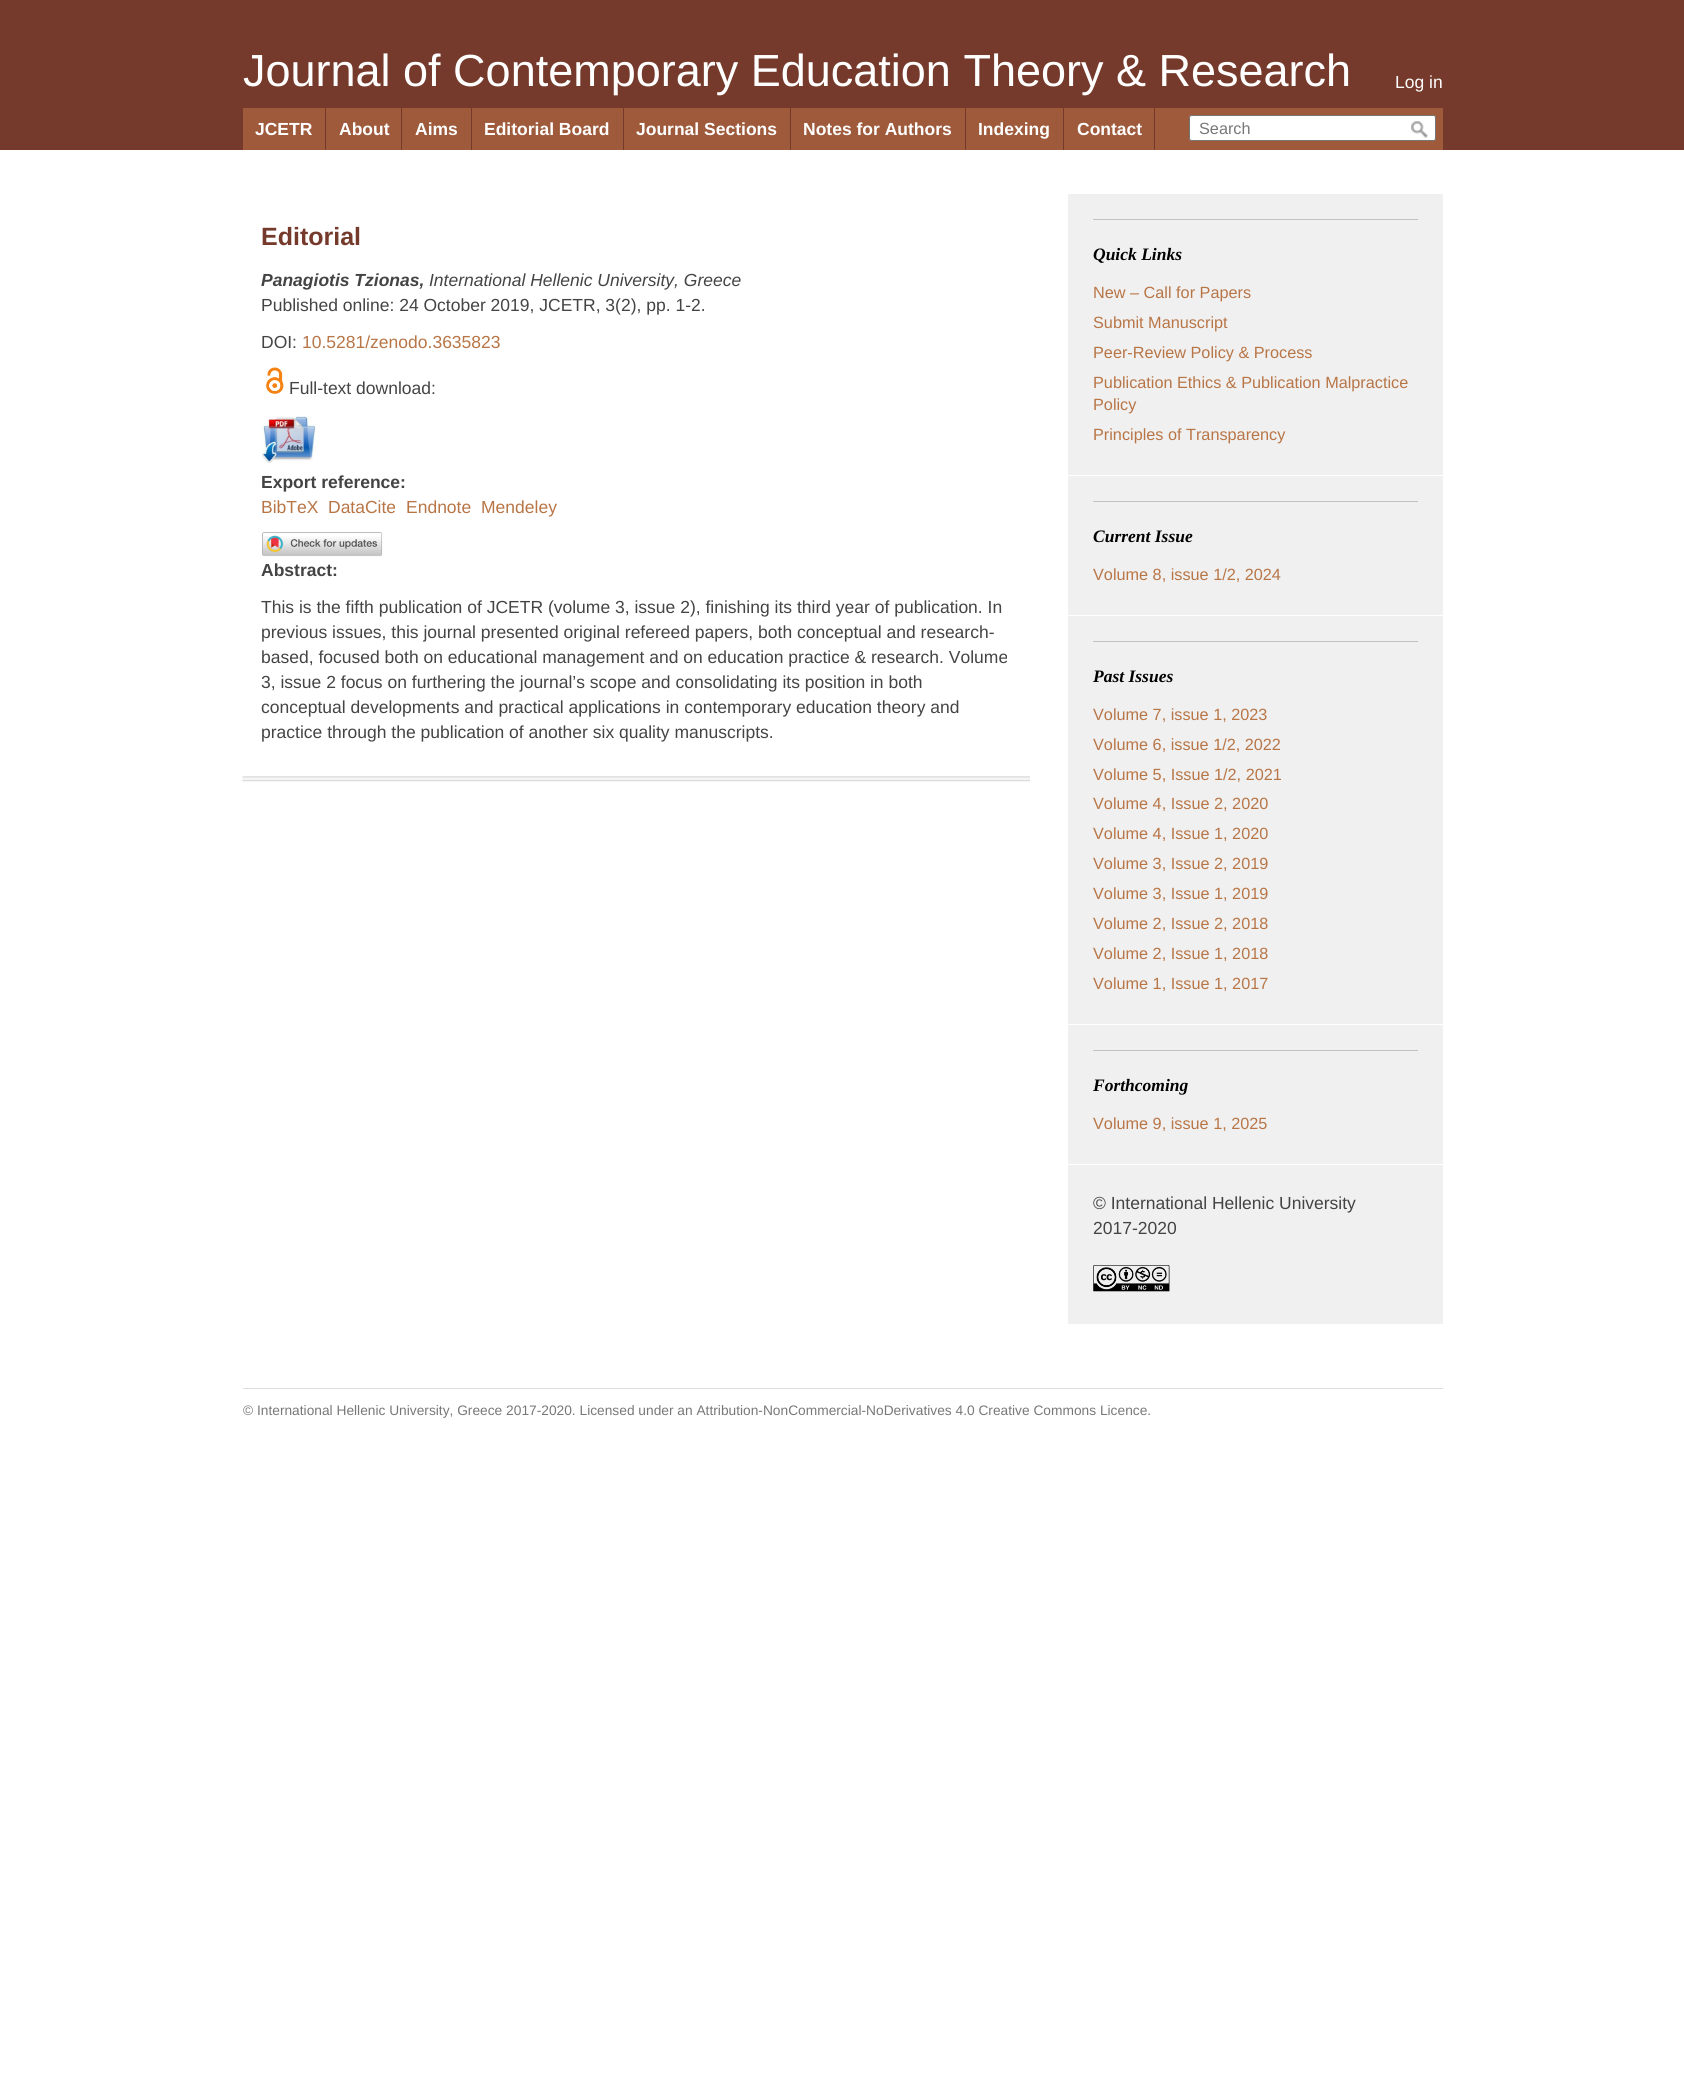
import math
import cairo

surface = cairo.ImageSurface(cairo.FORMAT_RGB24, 1684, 2074)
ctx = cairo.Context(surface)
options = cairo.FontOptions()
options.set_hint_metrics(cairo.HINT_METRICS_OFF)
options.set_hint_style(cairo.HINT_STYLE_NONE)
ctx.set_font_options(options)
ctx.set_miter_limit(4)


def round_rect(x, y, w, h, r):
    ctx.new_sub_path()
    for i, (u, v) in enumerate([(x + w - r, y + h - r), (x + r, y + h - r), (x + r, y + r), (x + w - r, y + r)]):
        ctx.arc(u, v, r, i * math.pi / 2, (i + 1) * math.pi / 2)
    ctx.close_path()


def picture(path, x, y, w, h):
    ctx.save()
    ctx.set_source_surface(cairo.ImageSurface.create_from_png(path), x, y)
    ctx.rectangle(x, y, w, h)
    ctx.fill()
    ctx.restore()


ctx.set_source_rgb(1, 1, 1)
ctx.paint()
ctx.set_source_rgb(0.459, 0.227, 0.169)
ctx.rectangle(0, 0, 1684, 150)
ctx.fill()
ctx.select_font_face("Liberation Sans")
ctx.set_font_size(45)
ctx.set_source_rgb(1, 1, 1)
ctx.move_to(243, 86)
ctx.show_text("Journal of Contemporary Education Theory & Research")
ctx.set_font_size(17.5)
ctx.move_to(1395, 88)
ctx.show_text("Log in")
ctx.set_source_rgb(0.62, 0.353, 0.231)
ctx.rectangle(243, 108, 1200, 42)
ctx.fill()
ctx.set_source_rgb(0.459, 0.227, 0.169)
ctx.rectangle(325, 108, 1, 42)
ctx.fill()
ctx.select_font_face("Liberation Sans", cairo.FONT_SLANT_NORMAL, cairo.FONT_WEIGHT_BOLD)
ctx.set_source_rgb(1, 1, 1)
ctx.move_to(255, 135)
ctx.show_text("JCETR")
ctx.set_source_rgb(0.459, 0.227, 0.169)
ctx.rectangle(401, 108, 1, 42)
ctx.fill()
ctx.set_source_rgb(1, 1, 1)
ctx.move_to(339, 135)
ctx.show_text("About")
ctx.set_source_rgb(0.459, 0.227, 0.169)
ctx.rectangle(471, 108, 1, 42)
ctx.fill()
ctx.set_source_rgb(1, 1, 1)
ctx.move_to(415, 135)
ctx.show_text("Aims")
ctx.set_source_rgb(0.459, 0.227, 0.169)
ctx.rectangle(623, 108, 1, 42)
ctx.fill()
ctx.set_source_rgb(1, 1, 1)
ctx.move_to(484, 135)
ctx.show_text("Editorial Board")
ctx.set_source_rgb(0.459, 0.227, 0.169)
ctx.rectangle(790, 108, 1, 42)
ctx.fill()
ctx.set_source_rgb(1, 1, 1)
ctx.move_to(636, 135)
ctx.show_text("Journal Sections")
ctx.set_source_rgb(0.459, 0.227, 0.169)
ctx.rectangle(965, 108, 1, 42)
ctx.fill()
ctx.set_source_rgb(1, 1, 1)
ctx.move_to(803, 135)
ctx.show_text("Notes for Authors")
ctx.set_source_rgb(0.459, 0.227, 0.169)
ctx.rectangle(1063, 108, 1, 42)
ctx.fill()
ctx.set_source_rgb(1, 1, 1)
ctx.move_to(978, 135)
ctx.show_text("Indexing")
ctx.set_source_rgb(0.459, 0.227, 0.169)
ctx.rectangle(1154, 108, 1, 42)
ctx.fill()
ctx.set_source_rgb(1, 1, 1)
ctx.move_to(1077, 135)
ctx.show_text("Contact")
round_rect(1189.5, 115.5, 246, 25, 2)
ctx.fill_preserve()
ctx.set_source_rgb(0.463, 0.463, 0.463)
ctx.set_line_width(1)
ctx.stroke()
ctx.select_font_face("Liberation Sans")
ctx.set_font_size(16.25)
ctx.set_source_rgb(0.471, 0.471, 0.471)
ctx.move_to(1199, 134)
ctx.show_text("Search")
picture("img1.png", 1411, 121, 17, 17)
picture("img2.png", 242, 776, 788, 6)
ctx.select_font_face("Liberation Sans", cairo.FONT_SLANT_NORMAL, cairo.FONT_WEIGHT_BOLD)
ctx.set_font_size(25)
ctx.set_source_rgb(0.459, 0.227, 0.169)
ctx.move_to(261, 245)
ctx.show_text("Editorial")
ctx.select_font_face("Liberation Sans", cairo.FONT_SLANT_ITALIC, cairo.FONT_WEIGHT_BOLD)
ctx.set_font_size(17.5)
ctx.set_source_rgb(0.267, 0.267, 0.267)
ctx.move_to(261, 286)
ctx.show_text("Panagiotis Tzionas,")
ctx.select_font_face("Liberation Sans", cairo.FONT_SLANT_ITALIC)
ctx.move_to(429, 286)
ctx.show_text("International Hellenic University, Greece")
ctx.select_font_face("Liberation Sans")
ctx.move_to(261, 311)
ctx.show_text("Published online: 24 October 2019, JCETR, 3(2), pp. 1-2.")
ctx.move_to(261, 348)
ctx.show_text("DOI:")
ctx.set_source_rgb(0.722, 0.459, 0.275)
ctx.move_to(302, 348)
ctx.show_text("10.5281/zenodo.3635823")
picture("img3.png", 266, 367, 18, 27)
ctx.set_source_rgb(0.267, 0.267, 0.267)
ctx.move_to(289, 394)
ctx.show_text("Full-text download:")
picture("img4.png", 261, 415, 56, 48)
ctx.select_font_face("Liberation Sans", cairo.FONT_SLANT_NORMAL, cairo.FONT_WEIGHT_BOLD)
ctx.move_to(261, 488)
ctx.show_text("Export reference:")
ctx.select_font_face("Liberation Sans")
ctx.set_source_rgb(0.722, 0.459, 0.275)
ctx.move_to(261, 513)
ctx.show_text("BibTeX")
ctx.move_to(328, 513)
ctx.show_text("DataCite")
ctx.move_to(406, 513)
ctx.show_text("Endnote")
ctx.move_to(481, 513)
ctx.show_text("Mendeley")
picture("img5.png", 262, 532, 121, 25)
ctx.select_font_face("Liberation Sans", cairo.FONT_SLANT_NORMAL, cairo.FONT_WEIGHT_BOLD)
ctx.set_source_rgb(0.267, 0.267, 0.267)
ctx.move_to(261, 576)
ctx.show_text("Abstract:")
ctx.select_font_face("Liberation Sans")
ctx.move_to(261, 613)
ctx.show_text("This is the fifth publication of JCETR (volume 3, issue 2), finishing its third year of publication. In")
ctx.move_to(261, 638)
ctx.show_text("previous issues, this journal presented original refereed papers, both conceptual and research-")
ctx.move_to(261, 663)
ctx.show_text("based, focused both on educational management and on education practice & research. Volume")
ctx.move_to(261, 688)
ctx.show_text("3, issue 2 focus on furthering the journal’s scope and consolidating its position in both")
ctx.move_to(261, 713)
ctx.show_text("conceptual developments and practical applications in contemporary education theory and")
ctx.move_to(261, 738)
ctx.show_text("practice through the publication of another six quality manuscripts.")
ctx.set_source_rgb(0.941, 0.941, 0.941)
ctx.rectangle(1068, 194, 375, 281)
ctx.fill()
ctx.set_source_rgb(0.761, 0.761, 0.761)
ctx.rectangle(1093, 219, 325, 1)
ctx.fill()
ctx.select_font_face("Liberation Serif", cairo.FONT_SLANT_ITALIC, cairo.FONT_WEIGHT_BOLD)
ctx.set_source_rgb(0, 0, 0)
ctx.move_to(1093, 260)
ctx.show_text("Quick Links")
ctx.select_font_face("Liberation Sans")
ctx.set_font_size(16.25)
ctx.set_source_rgb(0.722, 0.459, 0.275)
ctx.move_to(1093, 298)
ctx.show_text("New – Call for Papers")
ctx.move_to(1093, 328)
ctx.show_text("Submit Manuscript")
ctx.move_to(1093, 358)
ctx.show_text("Peer-Review Policy & Process")
ctx.move_to(1093, 388)
ctx.show_text("Publication Ethics & Publication Malpractice")
ctx.move_to(1093, 410)
ctx.show_text("Policy")
ctx.move_to(1093, 440)
ctx.show_text("Principles of Transparency")
ctx.set_source_rgb(0.941, 0.941, 0.941)
ctx.rectangle(1068, 476, 375, 139)
ctx.fill()
ctx.set_source_rgb(0.761, 0.761, 0.761)
ctx.rectangle(1093, 501, 325, 1)
ctx.fill()
ctx.select_font_face("Liberation Serif", cairo.FONT_SLANT_ITALIC, cairo.FONT_WEIGHT_BOLD)
ctx.set_font_size(17.5)
ctx.set_source_rgb(0, 0, 0)
ctx.move_to(1093, 542)
ctx.show_text("Current Issue")
ctx.select_font_face("Liberation Sans")
ctx.set_font_size(16.25)
ctx.set_source_rgb(0.722, 0.459, 0.275)
ctx.move_to(1093, 580)
ctx.show_text("Volume 8, issue 1/2, 2024")
ctx.set_source_rgb(0.941, 0.941, 0.941)
ctx.rectangle(1068, 616, 375, 408)
ctx.fill()
ctx.set_source_rgb(0.761, 0.761, 0.761)
ctx.rectangle(1093, 641, 325, 1)
ctx.fill()
ctx.select_font_face("Liberation Serif", cairo.FONT_SLANT_ITALIC, cairo.FONT_WEIGHT_BOLD)
ctx.set_font_size(17.5)
ctx.set_source_rgb(0, 0, 0)
ctx.move_to(1093, 682)
ctx.show_text("Past Issues")
ctx.select_font_face("Liberation Sans")
ctx.set_font_size(16.25)
ctx.set_source_rgb(0.722, 0.459, 0.275)
ctx.move_to(1093, 720)
ctx.show_text("Volume 7, issue 1, 2023")
ctx.move_to(1093, 750)
ctx.show_text("Volume 6, issue 1/2, 2022")
ctx.move_to(1093, 780)
ctx.show_text("Volume 5, Issue 1/2, 2021")
ctx.move_to(1093, 809)
ctx.show_text("Volume 4, Issue 2, 2020")
ctx.move_to(1093, 839)
ctx.show_text("Volume 4, Issue 1, 2020")
ctx.move_to(1093, 869)
ctx.show_text("Volume 3, Issue 2, 2019")
ctx.move_to(1093, 899)
ctx.show_text("Volume 3, Issue 1, 2019")
ctx.move_to(1093, 929)
ctx.show_text("Volume 2, Issue 2, 2018")
ctx.move_to(1093, 959)
ctx.show_text("Volume 2, Issue 1, 2018")
ctx.move_to(1093, 989)
ctx.show_text("Volume 1, Issue 1, 2017")
ctx.set_source_rgb(0.941, 0.941, 0.941)
ctx.rectangle(1068, 1025, 375, 139)
ctx.fill()
ctx.set_source_rgb(0.761, 0.761, 0.761)
ctx.rectangle(1093, 1050, 325, 1)
ctx.fill()
ctx.select_font_face("Liberation Serif", cairo.FONT_SLANT_ITALIC, cairo.FONT_WEIGHT_BOLD)
ctx.set_font_size(17.5)
ctx.set_source_rgb(0, 0, 0)
ctx.move_to(1093, 1091)
ctx.show_text("Forthcoming")
ctx.select_font_face("Liberation Sans")
ctx.set_font_size(16.25)
ctx.set_source_rgb(0.722, 0.459, 0.275)
ctx.move_to(1093, 1129)
ctx.show_text("Volume 9, issue 1, 2025")
ctx.set_source_rgb(0.941, 0.941, 0.941)
ctx.rectangle(1068, 1165, 375, 159)
ctx.fill()
ctx.set_font_size(17.5)
ctx.set_source_rgb(0.267, 0.267, 0.267)
ctx.move_to(1093, 1209)
ctx.show_text("© International Hellenic University")
ctx.move_to(1093, 1234)
ctx.show_text("2017-2020")
picture("img6.png", 1093, 1265, 77, 27)
ctx.set_source_rgb(0.867, 0.867, 0.867)
ctx.rectangle(243, 1388, 1200, 1)
ctx.fill()
ctx.set_font_size(13.75)
ctx.set_source_rgb(0.471, 0.471, 0.471)
ctx.move_to(243, 1415)
ctx.show_text("© International Hellenic University, Greece 2017-2020. Licensed under an Attribution-NonCommercial-NoDerivatives 4.0 Creative Commons Licence.")
surface.write_to_png("page.png")
